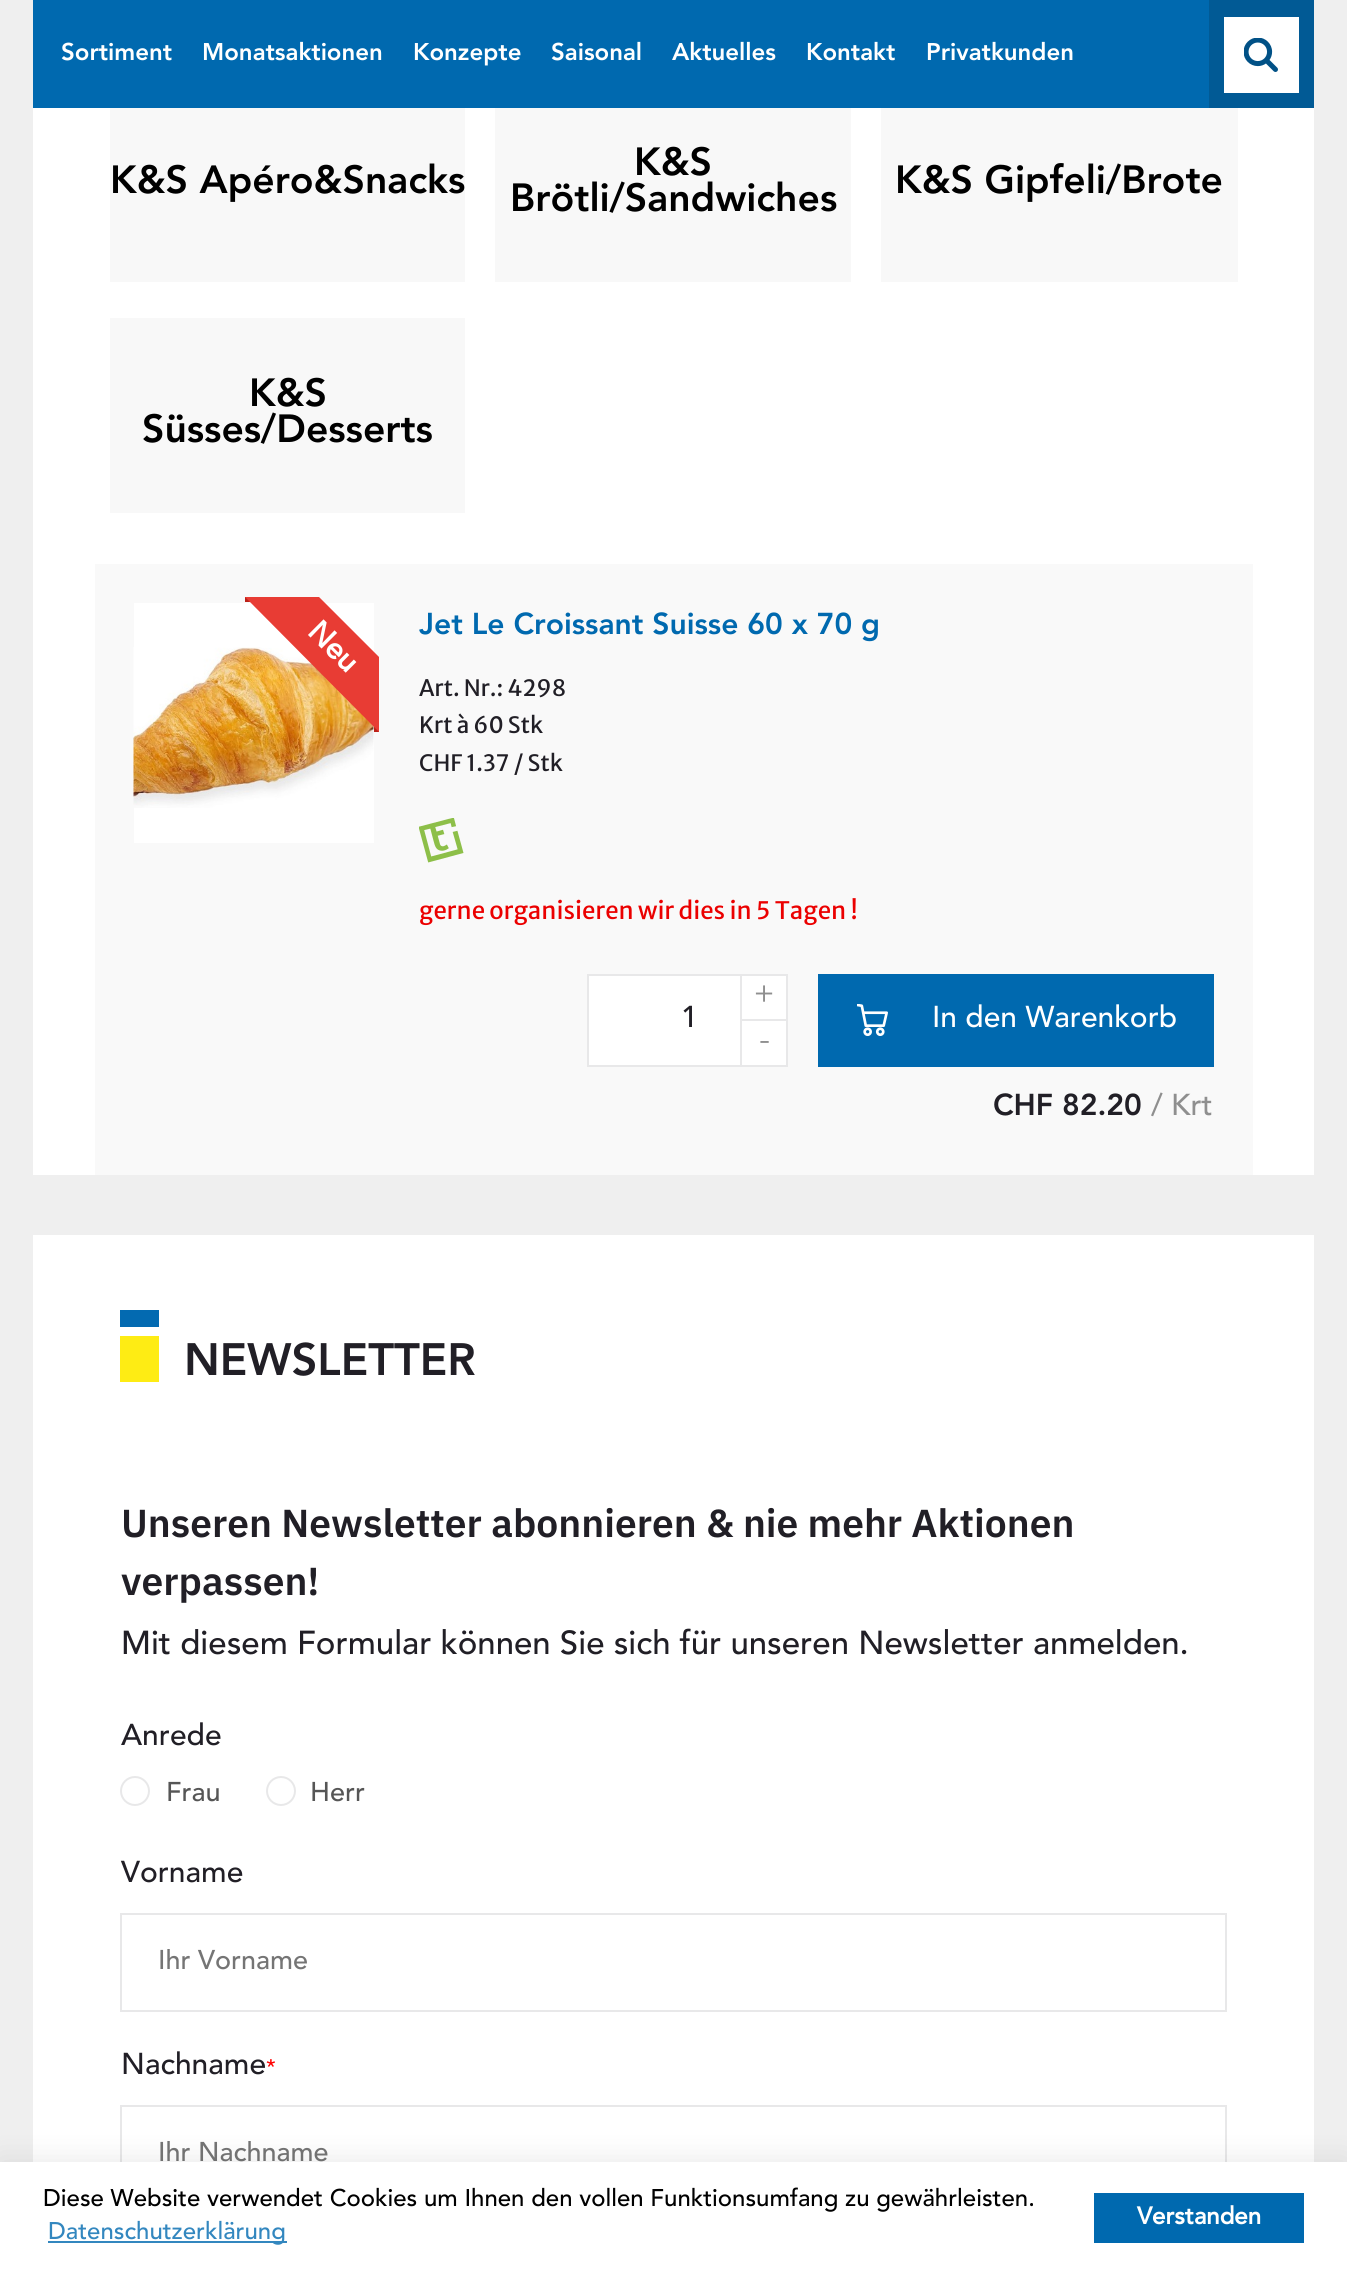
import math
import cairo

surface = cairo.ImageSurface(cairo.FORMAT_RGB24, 1347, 2273)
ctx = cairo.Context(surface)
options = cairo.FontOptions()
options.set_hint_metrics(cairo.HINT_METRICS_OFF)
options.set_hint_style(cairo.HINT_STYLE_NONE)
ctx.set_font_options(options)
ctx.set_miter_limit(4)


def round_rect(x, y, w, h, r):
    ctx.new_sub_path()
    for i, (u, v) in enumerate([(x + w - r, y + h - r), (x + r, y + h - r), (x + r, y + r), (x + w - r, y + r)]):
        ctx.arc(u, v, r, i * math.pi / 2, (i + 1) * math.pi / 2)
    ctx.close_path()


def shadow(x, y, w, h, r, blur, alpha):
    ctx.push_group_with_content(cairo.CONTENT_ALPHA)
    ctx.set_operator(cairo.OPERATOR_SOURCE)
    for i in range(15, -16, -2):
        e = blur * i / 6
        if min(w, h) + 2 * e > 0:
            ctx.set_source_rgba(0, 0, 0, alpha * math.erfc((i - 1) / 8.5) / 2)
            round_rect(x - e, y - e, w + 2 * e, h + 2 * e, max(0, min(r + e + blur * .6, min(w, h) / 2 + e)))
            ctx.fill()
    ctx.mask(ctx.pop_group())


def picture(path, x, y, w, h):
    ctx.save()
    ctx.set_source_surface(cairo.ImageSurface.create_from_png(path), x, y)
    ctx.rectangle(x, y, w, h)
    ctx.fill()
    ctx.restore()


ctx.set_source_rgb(0.937, 0.937, 0.937)
ctx.paint()
ctx.set_source_rgb(0, 0.412, 0.686)
ctx.rectangle(33, 0, 1176, 108)
ctx.fill()
ctx.select_font_face("Avenir Black")
ctx.set_font_size(24)
ctx.set_source_rgb(1, 1, 1)
ctx.move_to(61, 60)
ctx.show_text("Sortiment")
ctx.move_to(202, 60)
ctx.show_text("Monatsaktionen")
ctx.move_to(413, 60)
ctx.show_text("Konzepte")
ctx.move_to(551, 60)
ctx.show_text("Saisonal")
ctx.move_to(672, 60)
ctx.show_text("Aktuelles")
ctx.move_to(806, 60)
ctx.show_text("Kontakt")
ctx.move_to(926, 60)
ctx.show_text("Privatkunden")
ctx.set_source_rgb(0.004, 0.353, 0.584)
ctx.rectangle(1209, 0, 105, 108)
ctx.fill()
ctx.set_source_rgb(1, 1, 1)
ctx.rectangle(1224, 17, 75, 76)
ctx.fill()
picture("img1.png", 1244, 38, 34, 34)
ctx.rectangle(33, 108, 1281, 1067)
ctx.fill()
ctx.set_source_rgb(0.969, 0.969, 0.969)
ctx.rectangle(110, 108, 355, 174)
ctx.fill()
ctx.set_font_size(39)
ctx.set_source_rgb(0, 0, 0)
ctx.move_to(110, 193)
ctx.show_text("K&S Apéro&Snacks")
ctx.set_source_rgb(0.969, 0.969, 0.969)
ctx.rectangle(495, 108, 356, 174)
ctx.fill()
ctx.set_source_rgb(0, 0, 0)
ctx.move_to(634, 175)
ctx.show_text("K&S")
ctx.move_to(510, 211)
ctx.show_text("Brötli/Sandwiches")
ctx.set_source_rgb(0.969, 0.969, 0.969)
ctx.rectangle(881, 108, 357, 174)
ctx.fill()
ctx.set_source_rgb(0, 0, 0)
ctx.move_to(895, 193)
ctx.show_text("K&S Gipfeli/Brote")
ctx.set_source_rgb(0.969, 0.969, 0.969)
ctx.rectangle(110, 318, 355, 195)
ctx.fill()
ctx.set_source_rgb(0, 0, 0)
ctx.move_to(249, 406)
ctx.show_text("K&S")
ctx.move_to(142, 442)
ctx.show_text("Süsses/Desserts")
ctx.set_source_rgb(0.973, 0.973, 0.973)
ctx.rectangle(95, 564, 1158, 611)
ctx.fill()
ctx.set_source_rgb(1, 1, 1)
ctx.rectangle(134, 603, 240, 240)
ctx.fill()
picture("img2.png", 133, 647, 241, 161)
ctx.set_source_rgb(0.733, 0.129, 0.098)
ctx.rectangle(245, 597, 7, 5)
ctx.fill()
ctx.rectangle(374, 725, 5, 7)
ctx.fill()
ctx.set_source_rgb(0.91, 0.235, 0.204)
ctx.new_path()
ctx.move_to(379, 657)
ctx.line_to(319, 597)
ctx.line_to(245, 597)
ctx.line_to(379, 732)
ctx.close_path()
ctx.fill()
ctx.select_font_face("Avenir", cairo.FONT_SLANT_NORMAL, cairo.FONT_WEIGHT_BOLD)
ctx.set_font_size(30)
ctx.set_source_rgb(1, 1, 1)
ctx.save()
ctx.translate(306, 633)
ctx.rotate(45 * math.pi / 180)
ctx.move_to(0, 0)
ctx.show_text("Neu")
ctx.restore()
ctx.select_font_face("Avenir Black")
ctx.set_source_rgb(0, 0.412, 0.686)
ctx.move_to(419, 634)
ctx.show_text("Jet Le Croissant Suisse 60 x 70 g")
ctx.select_font_face("Merriweather Sans")
ctx.set_font_size(22.5)
ctx.set_source_rgb(0.129, 0.122, 0.149)
ctx.move_to(419, 696)
ctx.show_text("Art. Nr.: 4298")
ctx.move_to(419, 733)
ctx.show_text("Krt à 60 Stk")
ctx.move_to(419, 771)
ctx.show_text("CHF 1.37 / Stk")
picture("img3.png", 419, 818, 45, 45)
ctx.set_font_size(24)
ctx.set_source_rgb(0.918, 0, 0)
ctx.move_to(419, 919)
ctx.show_text("gerne organisieren wir dies in 5 Tagen !")
ctx.set_source_rgb(1, 1, 1)
ctx.rectangle(588, 975, 199, 91)
ctx.fill_preserve()
ctx.set_source_rgb(0.91, 0.91, 0.914)
ctx.stroke()
ctx.select_font_face("Avenir Medium")
ctx.set_font_size(30)
ctx.set_source_rgb(0.129, 0.122, 0.149)
ctx.move_to(681, 1027)
ctx.show_text("1")
ctx.set_source_rgb(0.91, 0.91, 0.914)
ctx.rectangle(740, 974, 2, 93)
ctx.fill()
ctx.rectangle(741, 1019, 47, 2)
ctx.fill()
ctx.select_font_face("Josefin Sans Thin")
ctx.set_font_size(45)
ctx.set_source_rgb(0.561, 0.561, 0.561)
ctx.move_to(752, 1004)
ctx.show_text("+")
ctx.move_to(758, 1051)
ctx.show_text("-")
ctx.set_source_rgb(0, 0.412, 0.686)
ctx.rectangle(818, 974, 396, 93)
ctx.fill()
picture("img4.png", 857, 1004, 31, 32)
ctx.select_font_face("Avenir Medium")
ctx.set_font_size(30)
ctx.set_source_rgb(1, 1, 1)
ctx.move_to(932, 1027)
ctx.show_text("In den Warenkorb")
ctx.select_font_face("Avenir Black")
ctx.set_source_rgb(0.129, 0.122, 0.149)
ctx.move_to(993, 1115)
ctx.show_text("CHF 82.20")
ctx.select_font_face("Avenir Medium")
ctx.set_source_rgb(0.561, 0.561, 0.561)
ctx.move_to(1151, 1115)
ctx.show_text("/ Krt")
ctx.set_source_rgb(1, 1, 1)
ctx.rectangle(33, 1235, 1281, 927)
ctx.fill()
ctx.set_source_rgb(0.996, 0.922, 0.082)
ctx.rectangle(120, 1336, 39, 46)
ctx.fill()
ctx.set_source_rgb(0.012, 0.416, 0.694)
ctx.rectangle(120, 1310, 39, 17)
ctx.fill()
ctx.select_font_face("Avenir Black")
ctx.set_font_size(45)
ctx.set_source_rgb(0.129, 0.122, 0.149)
ctx.move_to(184, 1375)
ctx.show_text("NEWSLETTER")
ctx.select_font_face("IBM Plex Sans SemiBold")
ctx.set_font_size(39)
ctx.move_to(121, 1537)
ctx.show_text("Unseren Newsletter abonnieren & nie mehr Aktionen")
ctx.move_to(121, 1595)
ctx.show_text("verpassen!")
ctx.select_font_face("Avenir Medium")
ctx.set_font_size(33)
ctx.move_to(121, 1654)
ctx.show_text("Mit diesem Formular können Sie sich für unseren Newsletter anmelden.")
ctx.set_font_size(30)
ctx.move_to(121, 1745)
ctx.show_text("Anrede")
ctx.new_path()
ctx.arc(135, 1791, 14, 0, 2 * math.pi)
ctx.set_source_rgb(0.91, 0.91, 0.914)
ctx.stroke()
ctx.set_font_size(27)
ctx.set_source_rgb(0.337, 0.337, 0.337)
ctx.move_to(166, 1801)
ctx.show_text("Frau")
ctx.new_path()
ctx.arc(281, 1791, 14, 0, 2 * math.pi)
ctx.set_source_rgb(0.91, 0.91, 0.914)
ctx.stroke()
ctx.set_source_rgb(0.337, 0.337, 0.337)
ctx.move_to(310, 1801)
ctx.show_text("Herr")
ctx.set_font_size(30)
ctx.set_source_rgb(0.129, 0.122, 0.149)
ctx.move_to(121, 1882)
ctx.show_text("Vorname")
ctx.rectangle(121, 1914, 1105, 97)
ctx.set_source_rgb(0.91, 0.91, 0.914)
ctx.stroke()
ctx.save()
ctx.rectangle(158, 1949, 1032, 27)
ctx.clip()
ctx.set_font_size(27)
ctx.set_source_rgb(0.459, 0.459, 0.459)
ctx.move_to(158, 1969)
ctx.show_text("Ihr Vorname")
ctx.restore()
ctx.set_source_rgb(0.129, 0.122, 0.149)
ctx.move_to(121, 2074)
ctx.show_text("Nachname")
ctx.set_font_size(21)
ctx.set_source_rgb(1, 0, 0)
ctx.move_to(266, 2074)
ctx.show_text("*")
ctx.rectangle(121, 2106, 1105, 97)
ctx.set_source_rgb(0.91, 0.91, 0.914)
ctx.stroke()
ctx.save()
ctx.rectangle(158, 2141, 1032, 27)
ctx.clip()
ctx.set_font_size(27)
ctx.set_source_rgb(0.459, 0.459, 0.459)
ctx.move_to(158, 2161)
ctx.show_text("Ihr Nachname")
ctx.restore()
ctx.set_source_rgb(0, 0, 0)
shadow(0, 2162, 1347, 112, 0, 15, 0.1)
ctx.set_source_rgb(1, 1, 1)
ctx.rectangle(0, 2162, 1347, 111)
ctx.fill()
ctx.set_font_size(24)
ctx.set_source_rgb(0, 0, 0)
ctx.move_to(43, 2206)
ctx.show_text("Diese Website verwendet Cookies um Ihnen den vollen Funktionsumfang zu gewährleisten.")
ctx.set_source_rgb(0.2, 0.529, 0.749)
ctx.rectangle(48, 2241, 239, 2)
ctx.fill()
ctx.move_to(48, 2239)
ctx.show_text("Datenschutzerklärung")
ctx.set_source_rgb(0, 0.412, 0.686)
ctx.rectangle(1094, 2193, 210, 50)
ctx.fill()
ctx.select_font_face("Avenir", cairo.FONT_SLANT_NORMAL, cairo.FONT_WEIGHT_BOLD)
ctx.set_source_rgb(1, 1, 1)
ctx.move_to(1137, 2224)
ctx.show_text("Verstanden")
surface.write_to_png("page.png")
